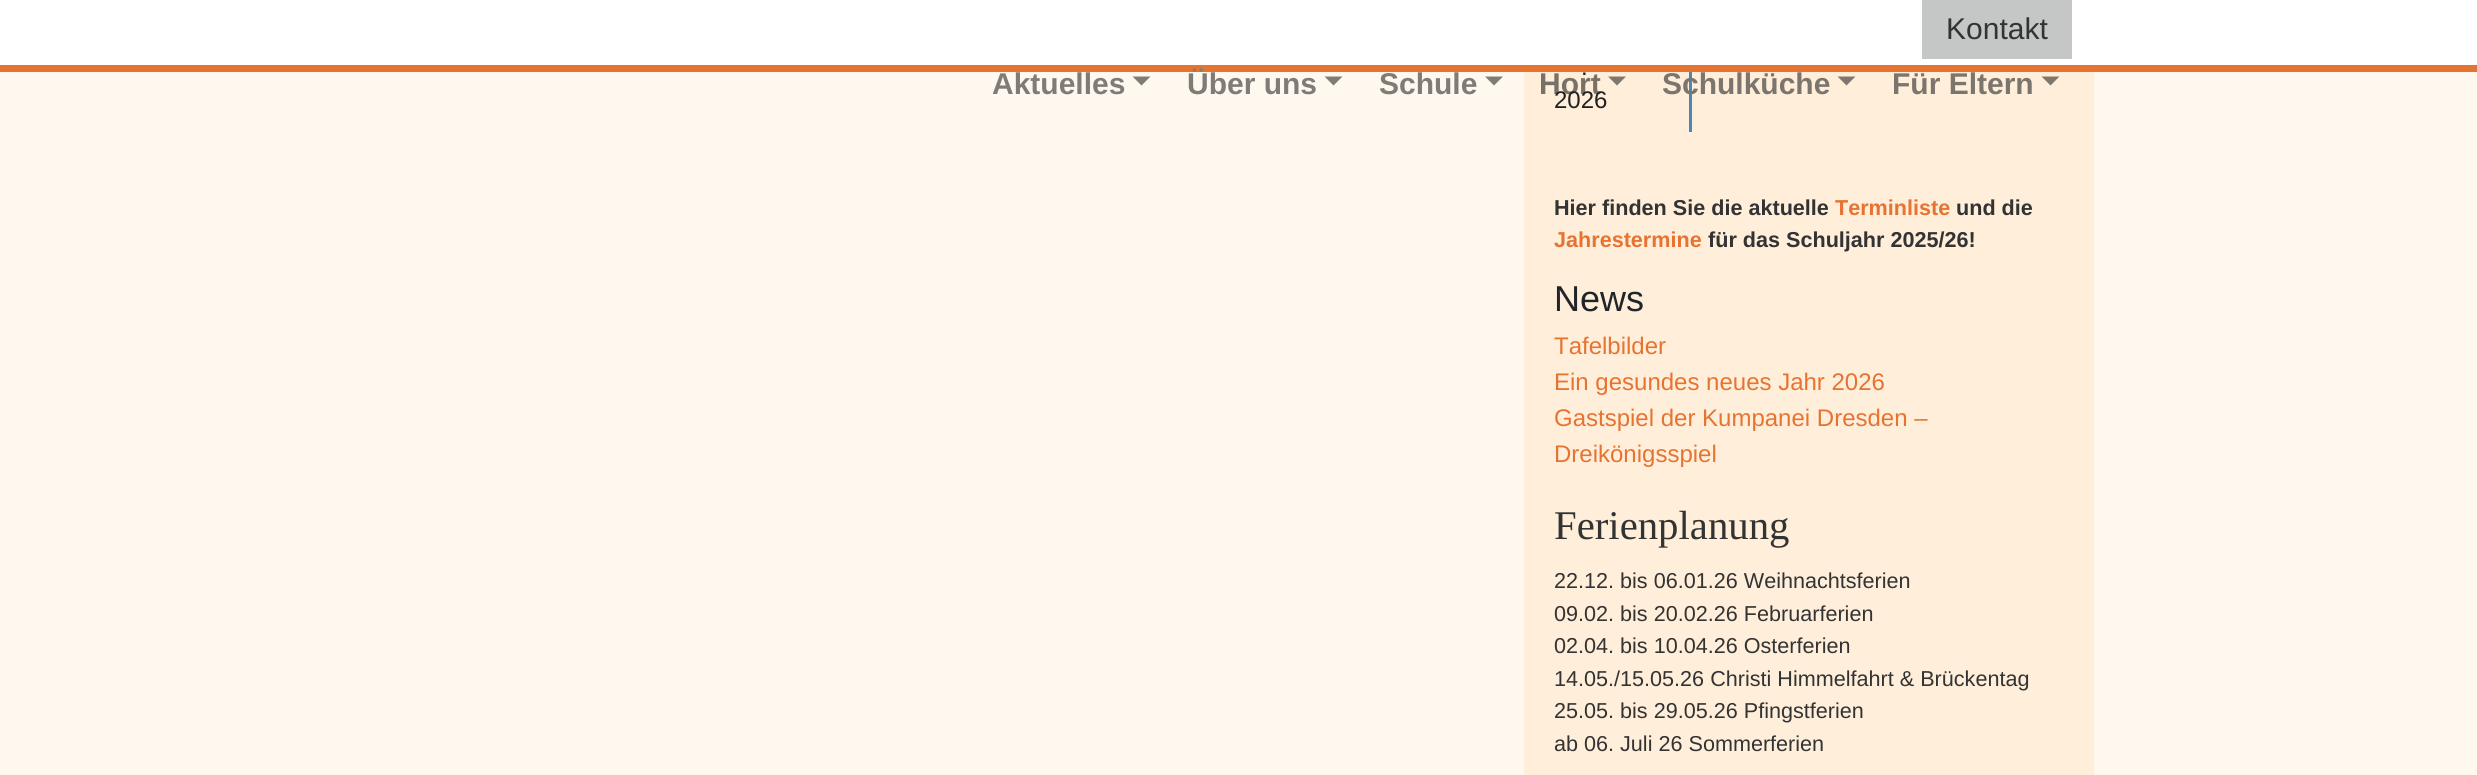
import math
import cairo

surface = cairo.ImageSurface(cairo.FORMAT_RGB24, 2477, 775)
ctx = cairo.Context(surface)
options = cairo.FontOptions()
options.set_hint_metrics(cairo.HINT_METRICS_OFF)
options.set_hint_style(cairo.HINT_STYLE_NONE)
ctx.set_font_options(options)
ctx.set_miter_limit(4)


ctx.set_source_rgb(0.996, 0.969, 0.933)
ctx.paint()
ctx.set_source_rgb(1, 1, 1)
ctx.rectangle(0, 0, 2477, 65)
ctx.fill()
ctx.set_source_rgb(0.773, 0.776, 0.776)
ctx.rectangle(1922, 0, 150, 59)
ctx.fill()
ctx.select_font_face("Liberation Sans")
ctx.set_font_size(30)
ctx.set_source_rgb(0.2, 0.2, 0.2)
ctx.move_to(1946, 39)
ctx.show_text("Kontakt")
ctx.set_source_rgb(0.906, 0.451, 0.192)
ctx.rectangle(0, 65, 2477, 7)
ctx.fill()
ctx.select_font_face("Liberation Sans", cairo.FONT_SLANT_NORMAL, cairo.FONT_WEIGHT_BOLD)
ctx.set_source_rgb(0.498, 0.486, 0.467)
ctx.move_to(992, 94)
ctx.show_text("Aktuelles")
ctx.new_path()
ctx.move_to(1132.5, 76.5)
ctx.line_to(1150.5, 76.5)
ctx.line_to(1141.5, 85.5)
ctx.close_path()
ctx.fill()
ctx.move_to(1187, 94)
ctx.show_text("Über uns")
ctx.new_path()
ctx.move_to(1324.5, 76.5)
ctx.line_to(1342.5, 76.5)
ctx.line_to(1333.5, 85.5)
ctx.close_path()
ctx.fill()
ctx.move_to(1379, 94)
ctx.show_text("Schule")
ctx.new_path()
ctx.move_to(1485, 76.5)
ctx.line_to(1503, 76.5)
ctx.line_to(1494, 85.5)
ctx.close_path()
ctx.fill()
ctx.set_source_rgb(0.996, 0.933, 0.855)
ctx.rectangle(1524, 72, 570, 703)
ctx.fill()
ctx.select_font_face("Liberation Sans")
ctx.set_font_size(24)
ctx.set_source_rgb(0.129, 0.129, 0.129)
ctx.move_to(1581, 75)
ctx.show_text(".")
ctx.select_font_face("Liberation Sans", cairo.FONT_SLANT_NORMAL, cairo.FONT_WEIGHT_BOLD)
ctx.set_font_size(30)
ctx.set_source_rgb(0.471, 0.443, 0.404)
ctx.move_to(1539, 94)
ctx.show_text("Hort")
ctx.set_source_rgb(0.498, 0.467, 0.427)
ctx.new_path()
ctx.move_to(1608, 76.5)
ctx.line_to(1626, 76.5)
ctx.line_to(1617, 85.5)
ctx.close_path()
ctx.fill()
ctx.set_source_rgb(0.294, 0.525, 0.706)
ctx.rectangle(1689, 72, 3, 60)
ctx.fill()
ctx.set_source_rgb(0.482, 0.459, 0.427)
ctx.move_to(1662, 94)
ctx.show_text("Schulküche")
ctx.set_source_rgba(0, 0, 0, 0.5)
ctx.new_path()
ctx.move_to(1837.5, 76.5)
ctx.line_to(1855.5, 76.5)
ctx.line_to(1846.5, 85.5)
ctx.close_path()
ctx.fill()
ctx.set_source_rgb(0.482, 0.459, 0.427)
ctx.move_to(1892, 94)
ctx.show_text("Für Eltern")
ctx.set_source_rgb(0.498, 0.467, 0.427)
ctx.new_path()
ctx.move_to(2041.5, 76.5)
ctx.line_to(2059.5, 76.5)
ctx.line_to(2050.5, 85.5)
ctx.close_path()
ctx.fill()
ctx.select_font_face("Liberation Sans")
ctx.set_font_size(24)
ctx.set_source_rgb(0.129, 0.129, 0.129)
ctx.move_to(1554, 108)
ctx.show_text("2026")
ctx.select_font_face("Liberation Sans", cairo.FONT_SLANT_NORMAL, cairo.FONT_WEIGHT_BOLD)
ctx.set_font_size(21.6)
ctx.set_source_rgb(0.2, 0.2, 0.2)
ctx.move_to(1554, 215)
ctx.show_text("Hier finden Sie die aktuelle")
ctx.set_source_rgb(0.906, 0.451, 0.192)
ctx.move_to(1835, 215)
ctx.show_text("Terminliste")
ctx.set_source_rgb(0.2, 0.2, 0.2)
ctx.move_to(1956, 215)
ctx.show_text("und die")
ctx.set_source_rgb(0.906, 0.451, 0.192)
ctx.move_to(1554, 247)
ctx.show_text("Jahrestermine")
ctx.set_source_rgb(0.2, 0.2, 0.2)
ctx.move_to(1708, 247)
ctx.show_text("für das Schuljahr 2025/26!")
ctx.select_font_face("Liberation Sans")
ctx.set_font_size(36)
ctx.set_source_rgb(0.129, 0.145, 0.161)
ctx.move_to(1554, 311)
ctx.show_text("News")
ctx.set_font_size(24)
ctx.set_source_rgb(0.906, 0.451, 0.192)
ctx.move_to(1554, 354)
ctx.show_text("Tafelbilder")
ctx.move_to(1554, 390)
ctx.show_text("Ein gesundes neues Jahr 2026")
ctx.move_to(1554, 426)
ctx.show_text("Gastspiel der Kumpanei Dresden –")
ctx.move_to(1554, 462)
ctx.show_text("Dreikönigsspiel")
ctx.select_font_face("Liberation Serif")
ctx.set_font_size(40.75)
ctx.set_source_rgb(0.2, 0.2, 0.2)
ctx.move_to(1554, 539)
ctx.show_text("Ferienplanung")
ctx.select_font_face("Liberation Sans")
ctx.set_font_size(21.6)
ctx.move_to(1554, 588)
ctx.show_text("22.12. bis 06.01.26 Weihnachtsferien")
ctx.move_to(1554, 621)
ctx.show_text("09.02. bis 20.02.26 Februarferien")
ctx.move_to(1554, 653)
ctx.show_text("02.04. bis 10.04.26 Osterferien")
ctx.move_to(1554, 686)
ctx.show_text("14.05./15.05.26 Christi Himmelfahrt & Brückentag")
ctx.move_to(1554, 718)
ctx.show_text("25.05. bis 29.05.26 Pfingstferien")
ctx.move_to(1554, 751)
ctx.show_text("ab 06. Juli 26 Sommerferien")
surface.write_to_png("page.png")
